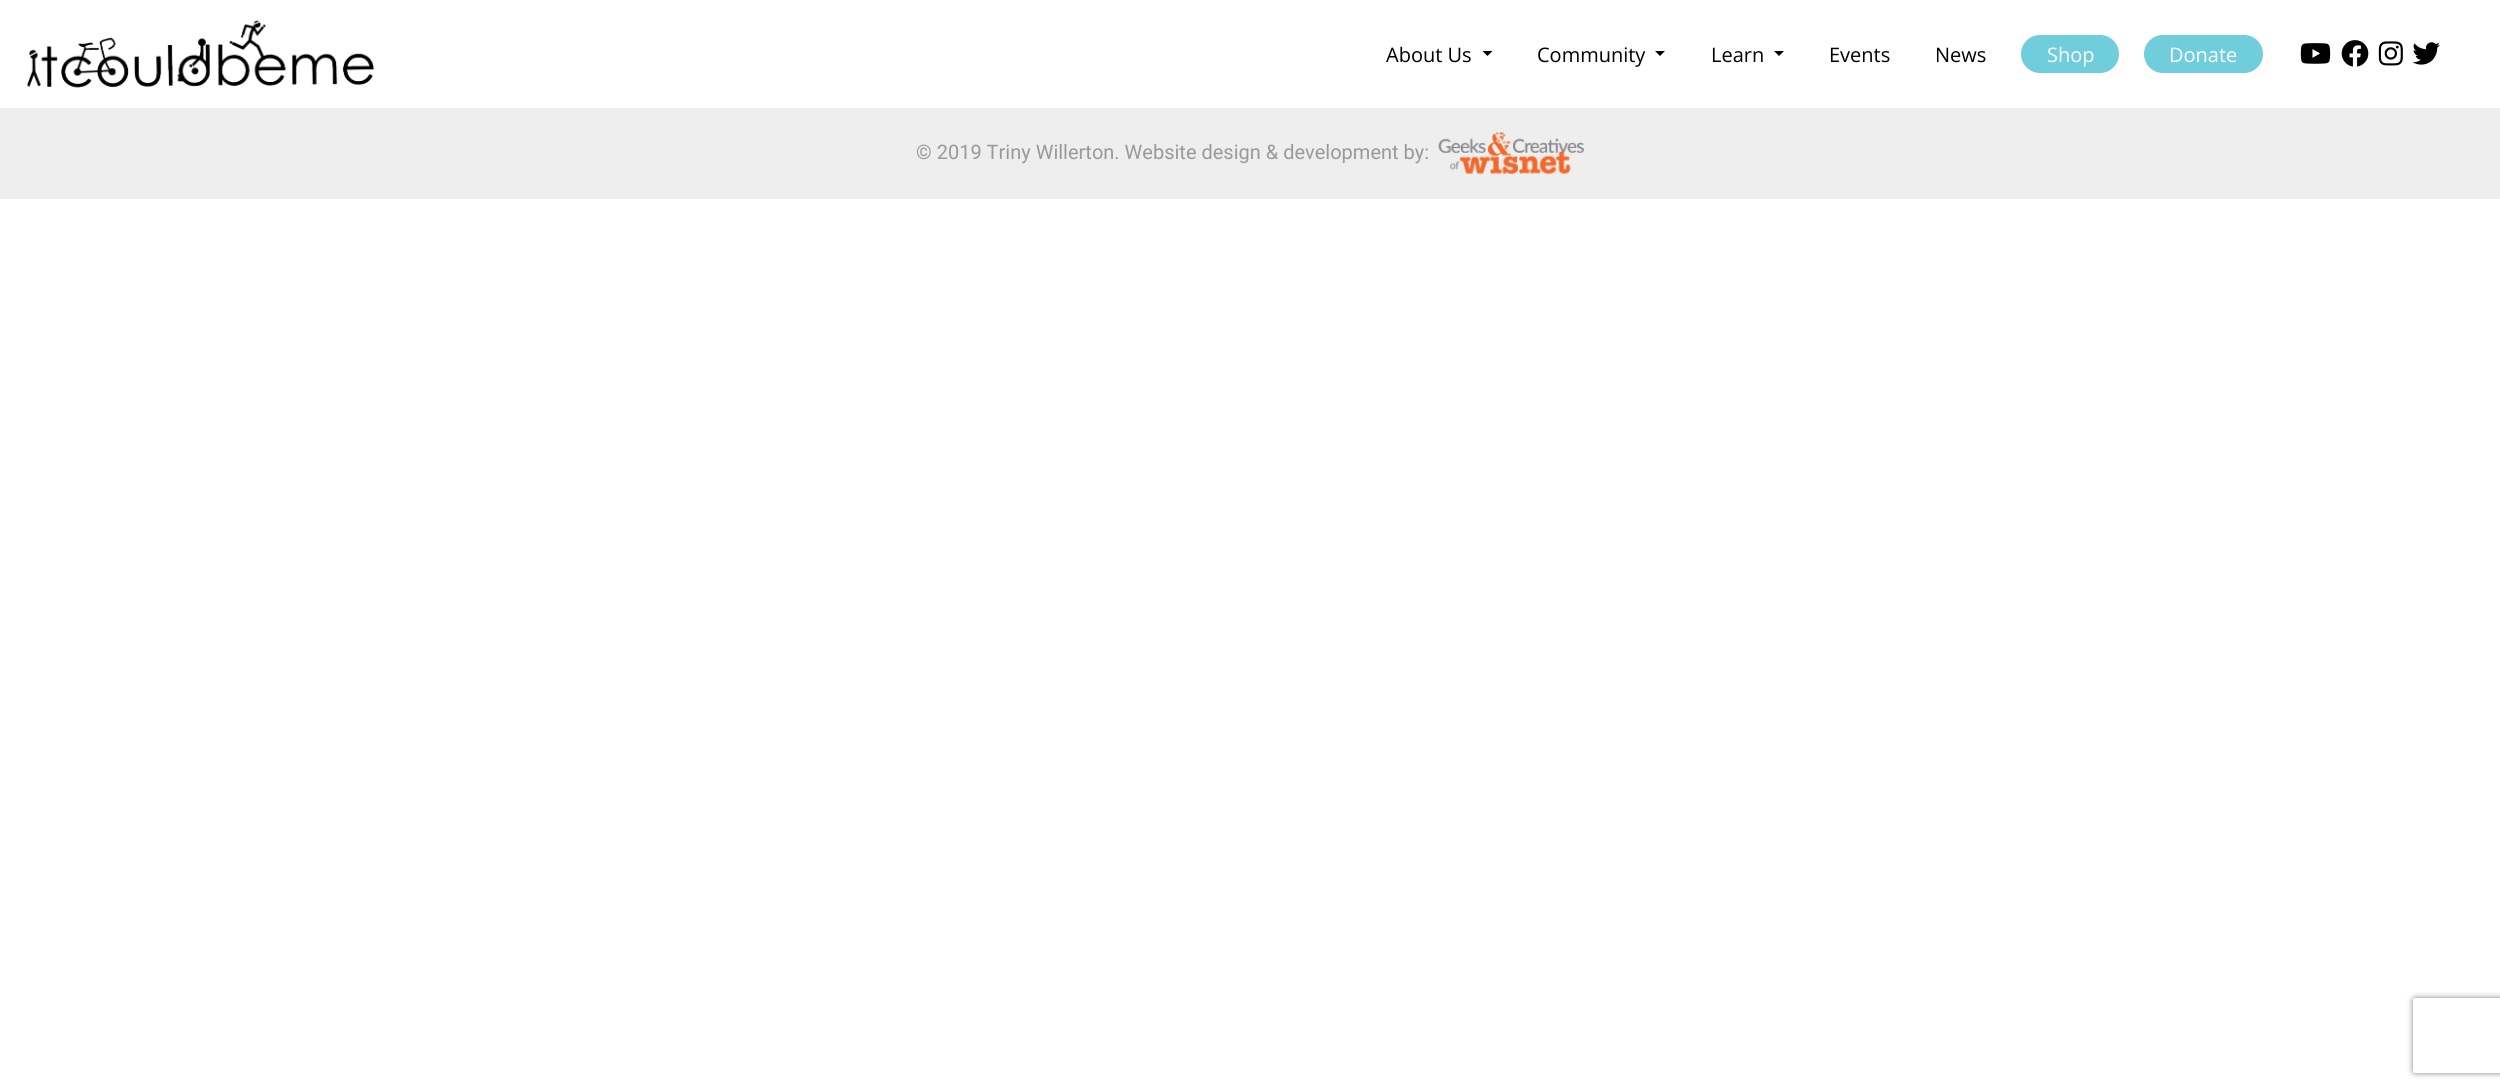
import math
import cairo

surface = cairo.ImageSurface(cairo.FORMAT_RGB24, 2500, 1090)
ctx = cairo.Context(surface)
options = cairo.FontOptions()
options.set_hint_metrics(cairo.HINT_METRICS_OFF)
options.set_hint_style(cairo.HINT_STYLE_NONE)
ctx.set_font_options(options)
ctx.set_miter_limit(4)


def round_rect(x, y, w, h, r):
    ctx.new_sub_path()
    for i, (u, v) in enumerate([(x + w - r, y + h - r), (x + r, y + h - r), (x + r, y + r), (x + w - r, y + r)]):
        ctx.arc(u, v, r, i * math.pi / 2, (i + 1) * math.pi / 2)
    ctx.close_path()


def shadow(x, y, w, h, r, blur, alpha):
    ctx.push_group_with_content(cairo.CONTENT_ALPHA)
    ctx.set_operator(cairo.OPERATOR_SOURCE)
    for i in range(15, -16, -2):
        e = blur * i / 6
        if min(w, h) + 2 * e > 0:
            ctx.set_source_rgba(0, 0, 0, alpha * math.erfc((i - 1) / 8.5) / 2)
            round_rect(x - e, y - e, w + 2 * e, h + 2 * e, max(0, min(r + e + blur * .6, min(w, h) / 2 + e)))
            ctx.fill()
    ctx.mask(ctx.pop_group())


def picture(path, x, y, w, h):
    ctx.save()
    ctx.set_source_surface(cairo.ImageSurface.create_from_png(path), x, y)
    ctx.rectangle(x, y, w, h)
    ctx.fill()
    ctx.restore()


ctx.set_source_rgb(1, 1, 1)
ctx.paint()
picture("img1.png", 27, 20, 348, 68)
ctx.select_font_face("Open Sans")
ctx.set_font_size(20)
ctx.set_source_rgb(0, 0, 0)
ctx.move_to(1386, 62)
ctx.show_text("About Us")
ctx.new_path()
ctx.move_to(1482.5, 51)
ctx.line_to(1492.5, 51)
ctx.line_to(1487.5, 56)
ctx.close_path()
ctx.fill()
ctx.move_to(1537, 62)
ctx.show_text("Community")
ctx.new_path()
ctx.move_to(1655, 51)
ctx.line_to(1665, 51)
ctx.line_to(1660, 56)
ctx.close_path()
ctx.fill()
ctx.move_to(1711, 62)
ctx.show_text("Learn")
ctx.new_path()
ctx.move_to(1774, 51)
ctx.line_to(1784, 51)
ctx.line_to(1779, 56)
ctx.close_path()
ctx.fill()
ctx.move_to(1829, 62)
ctx.show_text("Events")
ctx.move_to(1935, 62)
ctx.show_text("News")
ctx.set_source_rgb(0.435, 0.804, 0.863)
round_rect(2021, 35, 98, 38, 19)
ctx.fill()
ctx.set_source_rgb(1, 1, 1)
ctx.move_to(2047, 62)
ctx.show_text("Shop")
ctx.set_source_rgb(0.435, 0.804, 0.863)
round_rect(2144, 35, 119, 38, 19)
ctx.fill()
ctx.set_source_rgb(1, 1, 1)
ctx.move_to(2169, 62)
ctx.show_text("Donate")
picture("img2.png", 2300, 43, 31, 21)
picture("img3.png", 2341, 40, 28, 27)
picture("img4.png", 2378, 41, 25, 25)
picture("img5.png", 2412, 42, 28, 23)
ctx.set_source_rgb(0.933, 0.933, 0.933)
ctx.rectangle(0, 108, 2500, 91)
ctx.fill()
ctx.select_font_face("Roboto")
ctx.set_source_rgb(0.6, 0.6, 0.6)
ctx.move_to(916, 159)
ctx.show_text("© 2019 Triny Willerton. Website design & development by:")
picture("img6.png", 1438, 132, 146, 43)
ctx.save()
ctx.set_fill_rule(cairo.FILL_RULE_EVEN_ODD)
ctx.new_path()
ctx.move_to(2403, 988)
ctx.line_to(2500, 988)
ctx.line_to(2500, 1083)
ctx.line_to(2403, 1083)
ctx.close_path()
ctx.move_to(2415.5, 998)
ctx.line_to(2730.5, 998)
ctx.curve_to(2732, 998, 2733, 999, 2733, 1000.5)
ctx.line_to(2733, 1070.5)
ctx.curve_to(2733, 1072, 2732, 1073, 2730.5, 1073)
ctx.line_to(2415.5, 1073)
ctx.curve_to(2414, 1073, 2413, 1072, 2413, 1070.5)
ctx.line_to(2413, 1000.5)
ctx.curve_to(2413, 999, 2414, 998, 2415.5, 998)
ctx.close_path()
ctx.clip()
ctx.set_source_rgb(0.502, 0.502, 0.502)
shadow(2413, 998, 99, 75, 2.5, 3, 1)
ctx.restore()
surface.write_to_png("page.png")
